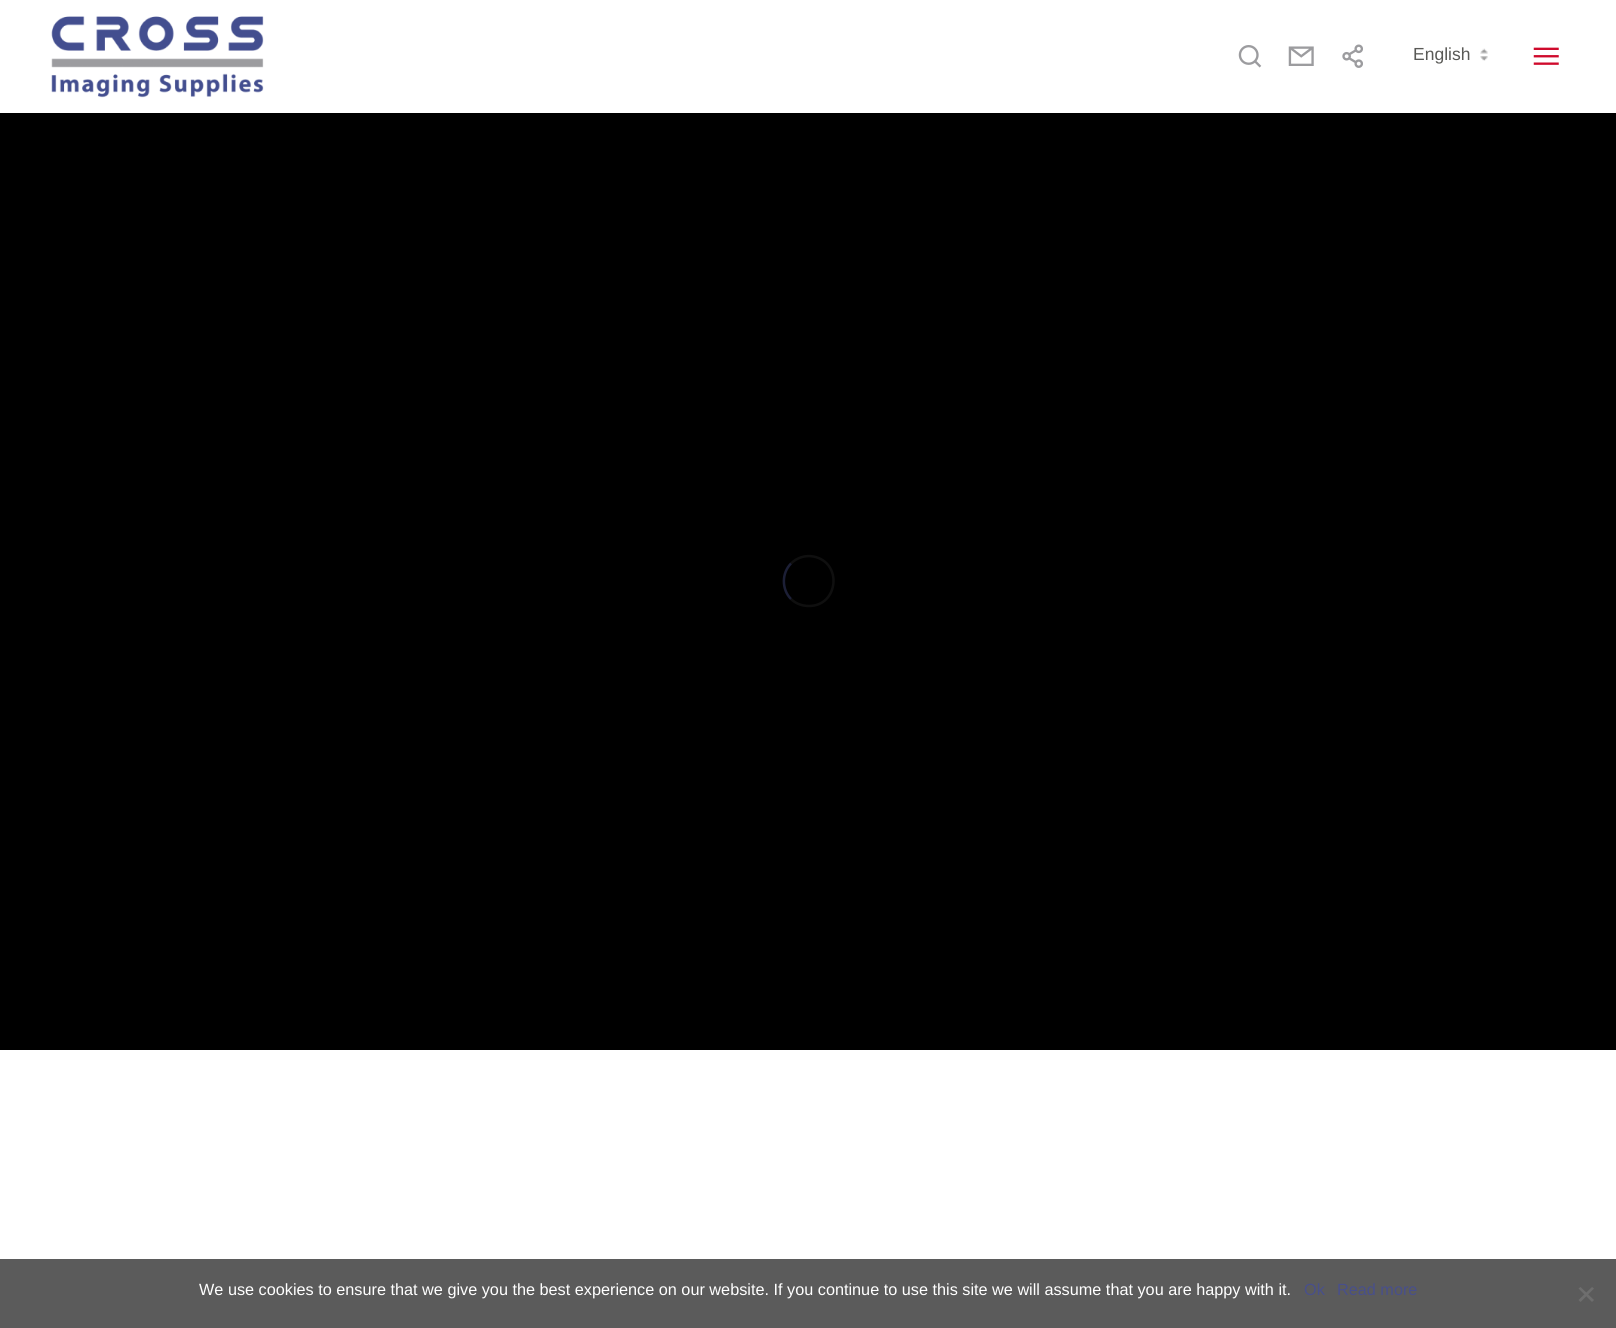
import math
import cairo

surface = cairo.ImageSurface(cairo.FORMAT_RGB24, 1616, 1328)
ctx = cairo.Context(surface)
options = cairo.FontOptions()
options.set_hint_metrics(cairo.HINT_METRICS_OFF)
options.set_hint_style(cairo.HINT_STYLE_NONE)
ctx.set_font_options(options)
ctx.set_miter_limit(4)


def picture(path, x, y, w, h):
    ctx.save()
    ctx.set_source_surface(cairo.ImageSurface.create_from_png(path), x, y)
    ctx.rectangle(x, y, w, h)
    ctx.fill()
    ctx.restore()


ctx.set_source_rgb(1, 1, 1)
ctx.paint()
picture("img1.png", 51, 16, 213, 82)
picture("img2.png", 1238, 45, 24, 23)
picture("img3.png", 1288, 46, 26, 20)
picture("img4.png", 1342, 44, 21, 24)
picture("img5.png", 1480, 48, 8, 13)
ctx.select_font_face("Liberation Sans")
ctx.set_font_size(17.5)
ctx.set_source_rgb(0.349, 0.349, 0.337)
ctx.move_to(1413, 60)
ctx.show_text("English")
picture("img6.png", 1533, 47, 26, 18)
ctx.set_source_rgb(0, 0, 0)
ctx.rectangle(0, 113, 1616, 937)
ctx.fill()
ctx.new_path()
ctx.move_to(791, 563.5)
ctx.curve_to(797, 557.5, 805.5, 555, 813.5, 556.5)
ctx.curve_to(843, 562.5, 838.5, 606, 809, 606)
ctx.curve_to(802, 606, 795.5, 603.5, 791, 599)
ctx.set_source_rgb(0.059, 0.059, 0.059)
ctx.set_line_width(2.5)
ctx.stroke()
ctx.new_path()
ctx.move_to(791, 599)
ctx.curve_to(781.5, 589.5, 781.5, 573, 791, 563.5)
ctx.set_source_rgb(0.11, 0.122, 0.212)
ctx.stroke()
ctx.set_source_rgb(0.357, 0.357, 0.357)
ctx.rectangle(0, 1259, 1616, 69)
ctx.fill()
ctx.set_font_size(16.25)
ctx.set_source_rgb(1, 1, 1)
ctx.move_to(199, 1295)
ctx.show_text("We use cookies to ensure that we give you the best experience on our website. If you continue to use this site we will assume that you are happy with it.")
ctx.set_source_rgb(0.282, 0.31, 0.545)
ctx.move_to(1304, 1295)
ctx.show_text("Ok")
ctx.move_to(1337, 1295)
ctx.show_text("Read more")
ctx.set_source_rgb(0.431, 0.431, 0.431)
ctx.new_path()
ctx.move_to(1592, 1287)
ctx.line_to(1594, 1288.5)
ctx.line_to(1580.5, 1302)
ctx.line_to(1578.5, 1300)
ctx.close_path()
ctx.fill()
ctx.new_path()
ctx.move_to(1578.5, 1288.5)
ctx.line_to(1580.5, 1287)
ctx.line_to(1594, 1300)
ctx.line_to(1592, 1302)
ctx.close_path()
ctx.fill()
surface.write_to_png("page.png")
